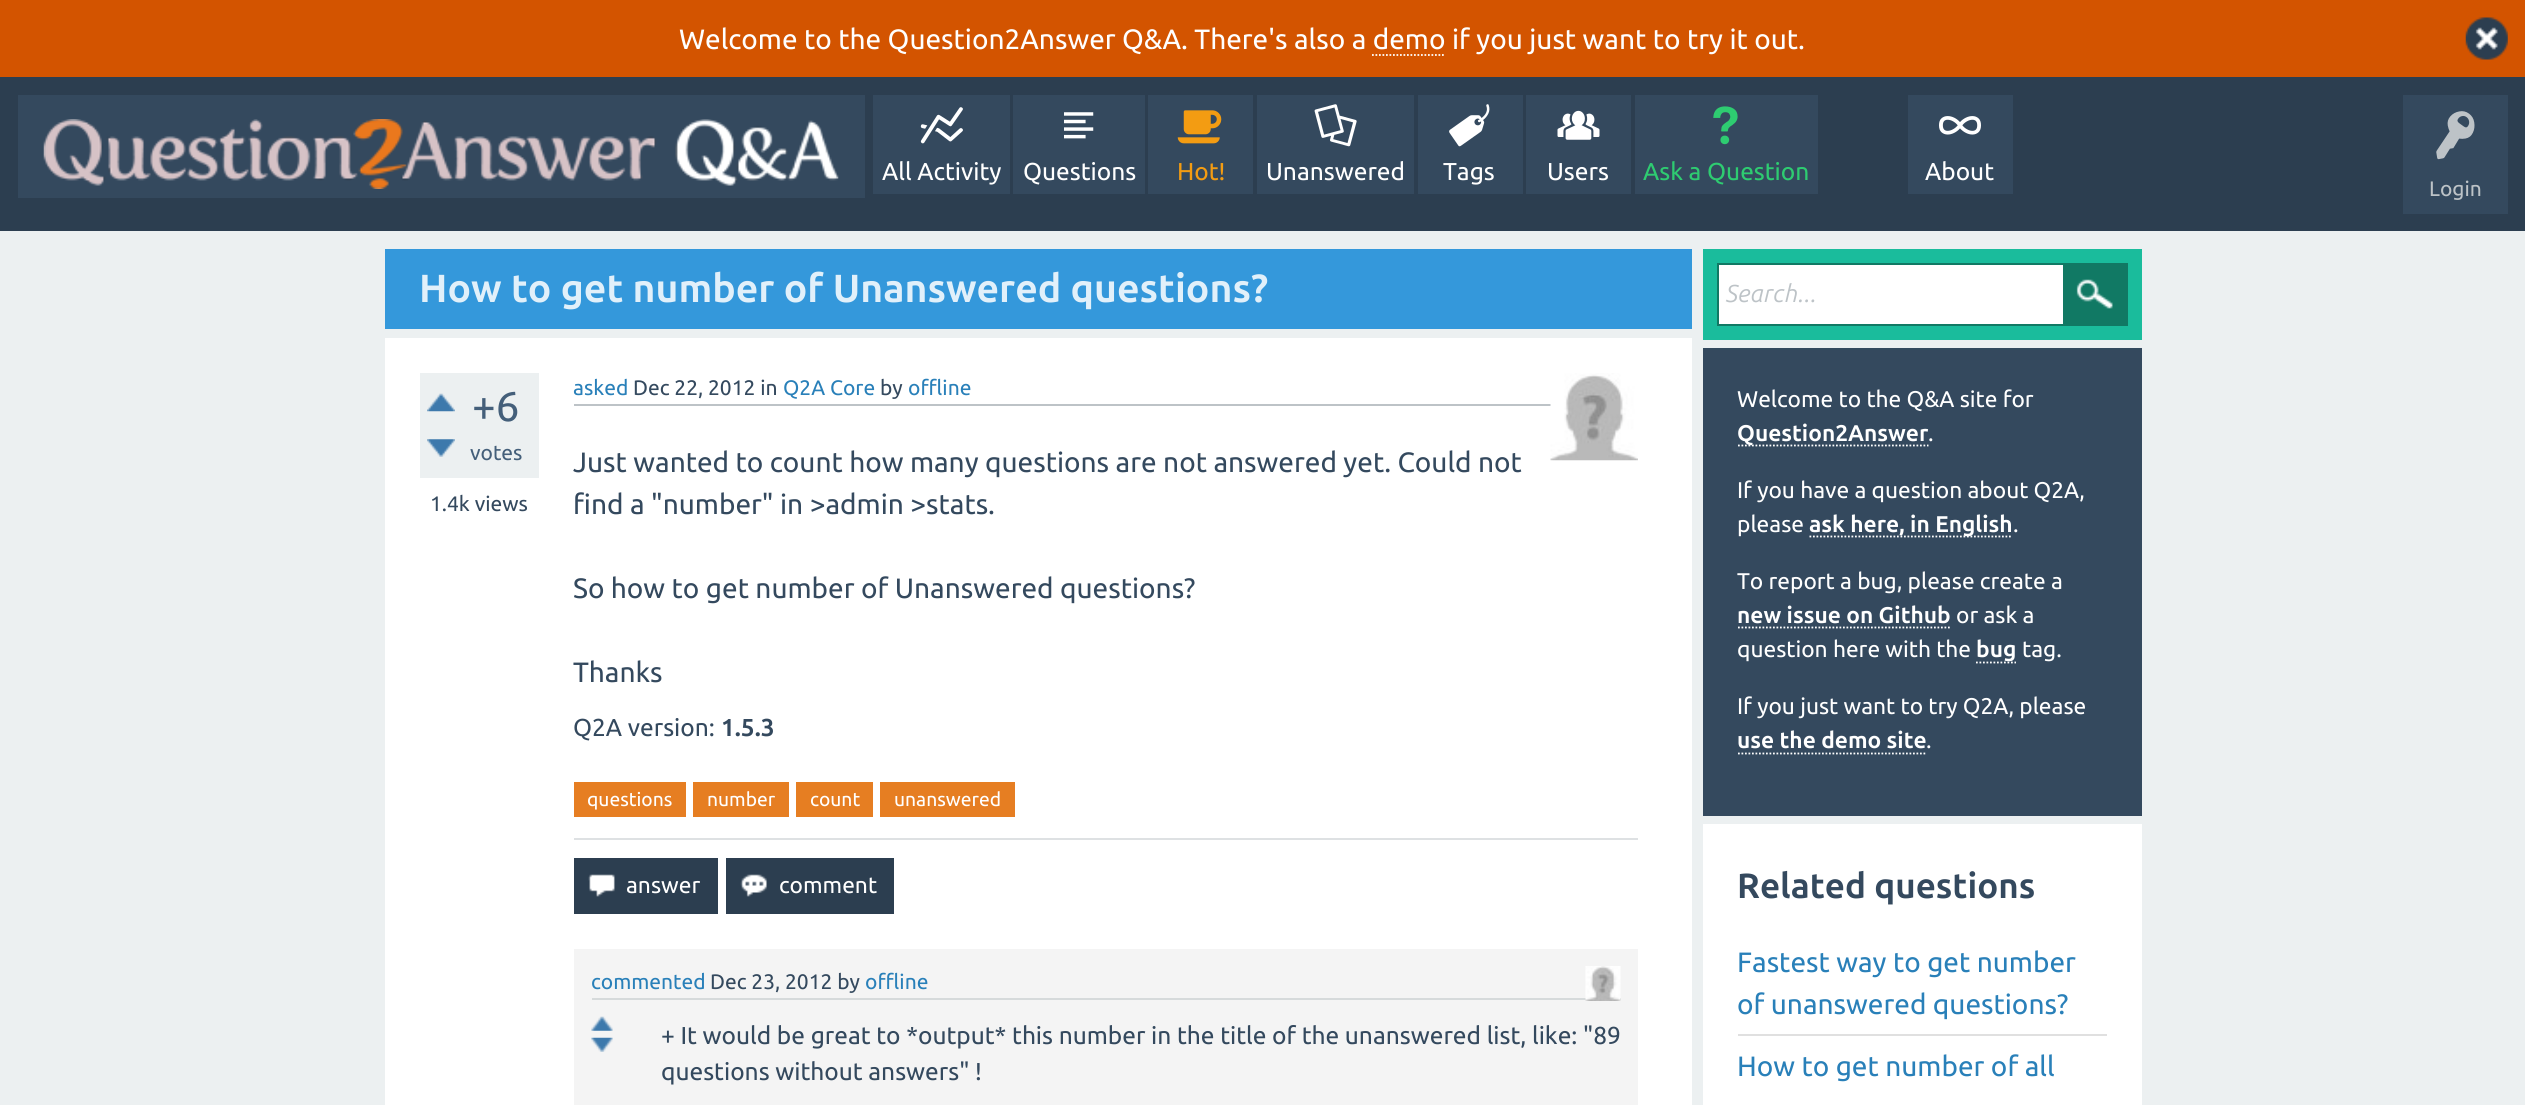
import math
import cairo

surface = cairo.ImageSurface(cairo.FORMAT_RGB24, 2525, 1105)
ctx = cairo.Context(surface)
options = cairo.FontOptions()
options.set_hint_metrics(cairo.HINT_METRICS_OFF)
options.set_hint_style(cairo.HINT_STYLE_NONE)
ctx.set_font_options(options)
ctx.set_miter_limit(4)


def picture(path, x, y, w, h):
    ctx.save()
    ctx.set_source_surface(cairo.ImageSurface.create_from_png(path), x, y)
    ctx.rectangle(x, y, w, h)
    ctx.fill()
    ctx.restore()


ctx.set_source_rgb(0.925, 0.941, 0.945)
ctx.paint()
ctx.set_source_rgb(0.827, 0.329, 0)
ctx.rectangle(0, 0, 2525, 77)
ctx.fill()
ctx.select_font_face("Ubuntu")
ctx.set_font_size(28)
ctx.set_source_rgb(1, 1, 1)
ctx.move_to(679, 49)
ctx.show_text("Welcome to the Question2Answer Q&A. There's also a demo if you just want to try it out.")
picture("img1.png", 2465, 17, 43, 43)
ctx.new_path()
ctx.move_to(1372, 55)
ctx.line_to(1445.5, 55)
ctx.set_line_width(1.8)
ctx.set_dash([1.75, 1.75])
ctx.stroke()
ctx.set_source_rgb(0.173, 0.243, 0.314)
ctx.rectangle(0, 77, 2525, 154)
ctx.fill()
ctx.set_source_rgb(0.204, 0.286, 0.369)
ctx.rectangle(18, 95, 847, 103)
ctx.fill()
picture("img2.png", 43, 119, 796, 70)
ctx.rectangle(873, 95, 137, 99)
ctx.fill()
picture("img3.png", 920, 107, 43, 37)
ctx.set_font_size(24.5)
ctx.set_source_rgb(1, 1, 1)
ctx.move_to(882, 180)
ctx.show_text("All Activity")
ctx.set_source_rgb(0.204, 0.286, 0.369)
ctx.rectangle(1013, 95, 132, 99)
ctx.fill()
picture("img4.png", 1064, 112, 30, 27)
ctx.set_source_rgb(1, 1, 1)
ctx.move_to(1023, 180)
ctx.show_text("Questions")
ctx.set_source_rgb(0.204, 0.286, 0.369)
ctx.rectangle(1148, 95, 105, 99)
ctx.fill()
picture("img5.png", 1177, 110, 45, 34)
ctx.set_source_rgb(0.953, 0.612, 0.071)
ctx.move_to(1177, 180)
ctx.show_text("Hot!")
ctx.set_source_rgb(0.204, 0.286, 0.369)
ctx.rectangle(1257, 95, 157, 99)
ctx.fill()
picture("img6.png", 1314, 104, 43, 43)
ctx.set_source_rgb(1, 1, 1)
ctx.move_to(1266, 180)
ctx.show_text("Unanswered")
ctx.set_source_rgb(0.204, 0.286, 0.369)
ctx.rectangle(1418, 95, 105, 99)
ctx.fill()
picture("img7.png", 1449, 104, 41, 43)
ctx.set_source_rgb(1, 1, 1)
ctx.move_to(1443, 180)
ctx.show_text("Tags")
ctx.set_source_rgb(0.204, 0.286, 0.369)
ctx.rectangle(1526, 95, 105, 99)
ctx.fill()
picture("img8.png", 1557, 110, 43, 30)
ctx.set_source_rgb(1, 1, 1)
ctx.move_to(1547, 180)
ctx.show_text("Users")
ctx.set_source_rgb(0.204, 0.286, 0.369)
ctx.rectangle(1635, 95, 183, 99)
ctx.fill()
picture("img9.png", 1713, 106, 25, 39)
ctx.set_source_rgb(0.18, 0.8, 0.443)
ctx.move_to(1643, 180)
ctx.show_text("Ask a Question")
ctx.set_source_rgb(0.204, 0.286, 0.369)
ctx.rectangle(1908, 95, 105, 99)
ctx.fill()
picture("img10.png", 1939, 116, 42, 19)
ctx.set_source_rgb(1, 1, 1)
ctx.move_to(1925, 180)
ctx.show_text("About")
ctx.set_source_rgb(0.204, 0.286, 0.369)
ctx.rectangle(2403, 95, 105, 119)
ctx.fill()
picture("img11.png", 2436, 111, 39, 49)
ctx.set_font_size(21)
ctx.set_source_rgb(0.741, 0.765, 0.78)
ctx.move_to(2429, 196)
ctx.show_text("Login")
ctx.set_source_rgb(0.204, 0.596, 0.859)
ctx.rectangle(385, 249, 1307, 80)
ctx.fill()
ctx.select_font_face("Ubuntu", cairo.FONT_SLANT_NORMAL, cairo.FONT_WEIGHT_BOLD)
ctx.set_font_size(39.2)
ctx.set_source_rgb(0.882, 0.941, 0.98)
ctx.move_to(419, 302)
ctx.show_text("How to get number of Unanswered questions?")
ctx.set_source_rgb(1, 1, 1)
ctx.rectangle(385, 338, 1307, 767)
ctx.fill()
ctx.set_source_rgb(0.925, 0.941, 0.945)
ctx.rectangle(420, 373, 119, 105)
ctx.fill()
picture("img12.png", 427, 393, 28, 19)
picture("img13.png", 427, 439, 28, 18)
ctx.select_font_face("Ubuntu")
ctx.set_font_size(42)
ctx.set_source_rgb(0.267, 0.373, 0.478)
ctx.move_to(472, 421)
ctx.show_text("+6")
ctx.set_font_size(21)
ctx.move_to(470, 460)
ctx.show_text("votes")
ctx.set_source_rgb(0.204, 0.286, 0.369)
ctx.move_to(430, 511)
ctx.show_text("1.4k views")
ctx.set_source_rgb(0.741, 0.765, 0.78)
ctx.rectangle(574, 404, 977, 2)
ctx.fill()
ctx.set_source_rgb(0.161, 0.502, 0.725)
ctx.move_to(573, 395)
ctx.show_text("asked")
ctx.set_source_rgb(0.204, 0.286, 0.369)
ctx.move_to(633, 395)
ctx.show_text("Dec 22, 2012 in")
ctx.set_source_rgb(0.161, 0.502, 0.725)
ctx.move_to(783, 395)
ctx.show_text("Q2A Core")
ctx.set_source_rgb(0.204, 0.286, 0.369)
ctx.move_to(880, 395)
ctx.show_text("by")
ctx.set_source_rgb(0.161, 0.502, 0.725)
ctx.move_to(908, 395)
ctx.show_text("offline")
picture("img14.png", 1550, 373, 88, 88)
ctx.set_font_size(28)
ctx.set_source_rgb(0.204, 0.286, 0.369)
ctx.move_to(573, 472)
ctx.show_text("Just wanted to count how many questions are not answered yet. Could not")
ctx.move_to(573, 514)
ctx.show_text("find a \"number\" in >admin >stats.")
ctx.move_to(573, 598)
ctx.show_text("So how to get number of Unanswered questions?")
ctx.move_to(573, 682)
ctx.show_text("Thanks")
ctx.set_font_size(24.5)
ctx.move_to(573, 736)
ctx.show_text("Q2A version:")
ctx.select_font_face("Ubuntu", cairo.FONT_SLANT_NORMAL, cairo.FONT_WEIGHT_BOLD)
ctx.move_to(721, 736)
ctx.show_text("1.5.3")
ctx.set_source_rgb(0.902, 0.494, 0.133)
ctx.rectangle(574, 782, 112, 35)
ctx.fill()
ctx.select_font_face("Ubuntu")
ctx.set_font_size(19.25)
ctx.set_source_rgb(1, 1, 1)
ctx.move_to(587, 806)
ctx.show_text("questions")
ctx.set_source_rgb(0.902, 0.494, 0.133)
ctx.rectangle(693, 782, 96, 35)
ctx.fill()
ctx.set_source_rgb(1, 1, 1)
ctx.move_to(707, 806)
ctx.show_text("number")
ctx.set_source_rgb(0.902, 0.494, 0.133)
ctx.rectangle(796, 782, 77, 35)
ctx.fill()
ctx.set_source_rgb(1, 1, 1)
ctx.move_to(810, 806)
ctx.show_text("count")
ctx.set_source_rgb(0.902, 0.494, 0.133)
ctx.rectangle(880, 782, 135, 35)
ctx.fill()
ctx.set_source_rgb(1, 1, 1)
ctx.move_to(894, 806)
ctx.show_text("unanswered")
ctx.set_source_rgb(0.871, 0.882, 0.89)
ctx.rectangle(574, 838, 1064, 2)
ctx.fill()
ctx.set_source_rgb(0.173, 0.243, 0.314)
ctx.rectangle(574, 858, 144, 56)
ctx.fill()
picture("img15.png", 588, 874, 27, 23)
ctx.set_font_size(22.75)
ctx.set_source_rgb(1, 1, 1)
ctx.move_to(626, 893)
ctx.show_text("answer")
ctx.set_source_rgb(0.173, 0.243, 0.314)
ctx.rectangle(726, 858, 168, 56)
ctx.fill()
picture("img16.png", 740, 874, 27, 23)
ctx.set_source_rgb(1, 1, 1)
ctx.move_to(779, 893)
ctx.show_text("comment")
ctx.set_source_rgb(0.957, 0.957, 0.957)
ctx.rectangle(574, 949, 1064, 156)
ctx.fill()
ctx.set_source_rgb(0.839, 0.855, 0.859)
ctx.rectangle(592, 998, 1029, 2)
ctx.fill()
ctx.set_font_size(21)
ctx.set_source_rgb(0.161, 0.502, 0.725)
ctx.move_to(591, 989)
ctx.show_text("commented")
ctx.set_source_rgb(0.204, 0.286, 0.369)
ctx.move_to(710, 989)
ctx.show_text("Dec 23, 2012 by")
ctx.set_source_rgb(0.161, 0.502, 0.725)
ctx.move_to(865, 989)
ctx.show_text("offline")
picture("img17.png", 1585, 966, 36, 35)
picture("img18.png", 591, 1016, 22, 15)
picture("img19.png", 591, 1037, 22, 15)
ctx.set_font_size(24.5)
ctx.set_source_rgb(0.204, 0.286, 0.369)
ctx.move_to(661, 1044)
ctx.show_text("+ It would be great to *output* this number in the title of the unanswered list, like: \"89")
ctx.move_to(661, 1080)
ctx.show_text("questions without answers\" !")
ctx.set_source_rgb(0.102, 0.737, 0.612)
ctx.rectangle(1703, 249, 439, 91)
ctx.fill()
ctx.set_source_rgb(1, 1, 1)
ctx.rectangle(1719, 265, 344, 59)
ctx.fill()
ctx.rectangle(1718, 264, 409, 61)
ctx.set_source_rgb(0.067, 0.475, 0.392)
ctx.set_line_width(2)
ctx.set_dash([])
ctx.stroke()
ctx.select_font_face("Ubuntu", cairo.FONT_SLANT_ITALIC)
ctx.set_source_rgb(0.741, 0.765, 0.78)
ctx.move_to(1726, 302)
ctx.show_text("Search...")
ctx.set_source_rgb(0.067, 0.475, 0.392)
ctx.rectangle(2063, 265, 63, 59)
ctx.fill()
picture("img20.png", 2076, 279, 37, 30)
ctx.set_source_rgb(0.204, 0.286, 0.369)
ctx.rectangle(1703, 348, 439, 468)
ctx.fill()
ctx.select_font_face("Ubuntu")
ctx.set_font_size(22.75)
ctx.set_source_rgb(1, 1, 1)
ctx.move_to(1737, 407)
ctx.show_text("Welcome to the Q&A site for")
ctx.new_path()
ctx.move_to(1738, 445.5)
ctx.line_to(1928.5, 445.5)
ctx.set_line_width(1.8)
ctx.set_dash([1.75, 1.75])
ctx.stroke()
ctx.select_font_face("Ubuntu", cairo.FONT_SLANT_NORMAL, cairo.FONT_WEIGHT_BOLD)
ctx.move_to(1737, 441)
ctx.show_text("Question2Answer")
ctx.select_font_face("Ubuntu")
ctx.move_to(1928, 441)
ctx.show_text(".")
ctx.move_to(1737, 498)
ctx.show_text("If you have a question about Q2A,")
ctx.move_to(1737, 532)
ctx.show_text("please")
ctx.new_path()
ctx.move_to(1809.5, 536.5)
ctx.line_to(2012.5, 536.5)
ctx.stroke()
ctx.select_font_face("Ubuntu", cairo.FONT_SLANT_NORMAL, cairo.FONT_WEIGHT_BOLD)
ctx.move_to(1809, 532)
ctx.show_text("ask here, in English")
ctx.select_font_face("Ubuntu")
ctx.move_to(2013, 532)
ctx.show_text(".")
ctx.move_to(1737, 589)
ctx.show_text("To report a bug, please create a")
ctx.select_font_face("Ubuntu", cairo.FONT_SLANT_NORMAL, cairo.FONT_WEIGHT_BOLD)
ctx.move_to(1737, 623)
ctx.show_text("new issue on Github")
ctx.new_path()
ctx.move_to(1738, 627.5)
ctx.line_to(1951, 627.5)
ctx.stroke()
ctx.select_font_face("Ubuntu")
ctx.move_to(1956, 623)
ctx.show_text("or ask a")
ctx.move_to(1737, 657)
ctx.show_text("question here with the")
ctx.new_path()
ctx.move_to(1976, 662.5)
ctx.line_to(2016, 662.5)
ctx.stroke()
ctx.select_font_face("Ubuntu", cairo.FONT_SLANT_NORMAL, cairo.FONT_WEIGHT_BOLD)
ctx.move_to(1976, 657)
ctx.show_text("bug")
ctx.select_font_face("Ubuntu")
ctx.move_to(2022, 657)
ctx.show_text("tag.")
ctx.move_to(1737, 714)
ctx.show_text("If you just want to try Q2A, please")
ctx.select_font_face("Ubuntu", cairo.FONT_SLANT_NORMAL, cairo.FONT_WEIGHT_BOLD)
ctx.move_to(1737, 748)
ctx.show_text("use the demo site")
ctx.new_path()
ctx.move_to(1738, 753.5)
ctx.line_to(1927, 753.5)
ctx.stroke()
ctx.select_font_face("Ubuntu")
ctx.move_to(1926, 748)
ctx.show_text(".")
ctx.rectangle(1703, 824, 439, 281)
ctx.fill()
ctx.select_font_face("Ubuntu", cairo.FONT_SLANT_NORMAL, cairo.FONT_WEIGHT_BOLD)
ctx.set_font_size(35)
ctx.set_source_rgb(0.204, 0.286, 0.369)
ctx.move_to(1737, 898)
ctx.show_text("Related questions")
ctx.set_source_rgb(0.878, 0.878, 0.878)
ctx.rectangle(1738, 1034, 369, 2)
ctx.fill()
ctx.select_font_face("Ubuntu")
ctx.set_font_size(28)
ctx.set_source_rgb(0.161, 0.502, 0.725)
ctx.move_to(1737, 972)
ctx.show_text("Fastest way to get number")
ctx.move_to(1737, 1014)
ctx.show_text("of unanswered questions?")
ctx.move_to(1737, 1076)
ctx.show_text("How to get number of all")
surface.write_to_png("page.png")
